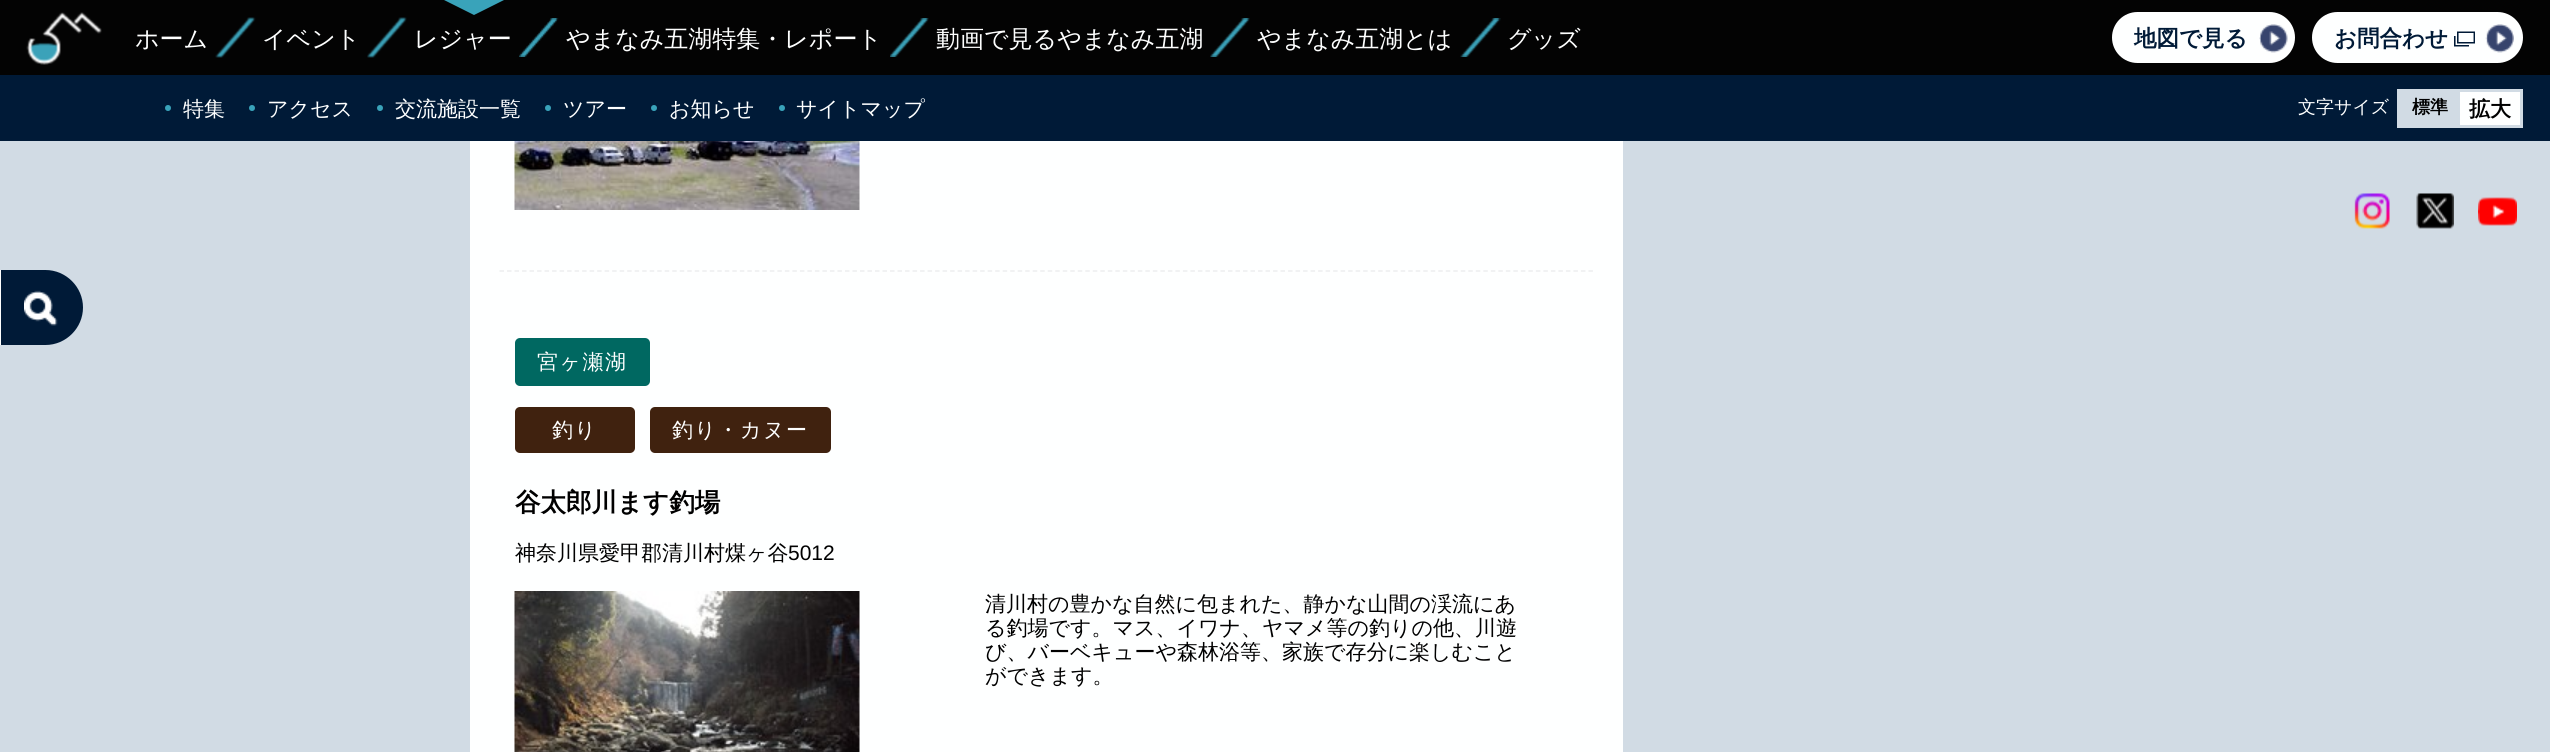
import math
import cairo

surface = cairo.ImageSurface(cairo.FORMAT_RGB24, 2550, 752)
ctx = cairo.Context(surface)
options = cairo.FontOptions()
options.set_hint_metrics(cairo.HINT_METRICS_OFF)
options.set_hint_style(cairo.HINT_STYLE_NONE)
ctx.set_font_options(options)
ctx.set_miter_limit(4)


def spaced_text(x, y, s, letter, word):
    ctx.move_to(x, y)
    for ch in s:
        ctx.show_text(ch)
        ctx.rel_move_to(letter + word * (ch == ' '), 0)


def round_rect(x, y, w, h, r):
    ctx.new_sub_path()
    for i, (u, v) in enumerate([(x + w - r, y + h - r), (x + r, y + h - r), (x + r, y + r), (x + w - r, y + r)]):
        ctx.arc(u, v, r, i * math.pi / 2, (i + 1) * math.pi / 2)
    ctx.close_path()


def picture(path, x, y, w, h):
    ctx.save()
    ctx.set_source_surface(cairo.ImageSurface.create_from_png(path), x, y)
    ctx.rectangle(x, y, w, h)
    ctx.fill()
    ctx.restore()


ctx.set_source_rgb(0.82, 0.859, 0.894)
ctx.paint()
ctx.set_source_rgb(0.012, 0.012, 0.012)
ctx.rectangle(0, 0, 2550, 75)
ctx.fill()
picture("img1.png", 26, 12, 76, 53)
ctx.select_font_face("WenQuanYi Zen Hei Medium")
ctx.set_font_size(24)
ctx.set_source_rgb(0.996, 1, 1)
ctx.move_to(135, 47)
ctx.show_text("ホーム")
picture("img2.png", 215, 17, 41, 41)
ctx.move_to(262, 47)
ctx.show_text("イベント")
picture("img3.png", 367, 17, 40, 41)
ctx.set_source_rgb(0.224, 0.639, 0.729)
ctx.new_path()
ctx.move_to(444, 0)
ctx.line_to(504, 0)
ctx.line_to(474, 15)
ctx.close_path()
ctx.fill()
ctx.set_source_rgb(0.996, 1, 1)
ctx.move_to(414, 47)
ctx.show_text("レジャー")
picture("img4.png", 519, 18, 40, 39)
ctx.move_to(566, 47)
ctx.show_text("やまなみ五湖特集・レポート")
picture("img5.png", 890, 18, 39, 39)
ctx.move_to(936, 47)
ctx.show_text("動画で見るやまなみ五湖")
picture("img6.png", 1210, 18, 40, 39)
ctx.move_to(1257, 47)
ctx.show_text("やまなみ五湖とは")
picture("img7.png", 1460, 18, 41, 39)
ctx.move_to(1507, 47)
ctx.show_text("グッズ")
round_rect(2112, 12, 183, 51, 25.5)
ctx.fill()
picture("img8.png", 2259, 24, 29, 29)
ctx.select_font_face("WenQuanYi Zen Hei", cairo.FONT_SLANT_NORMAL, cairo.FONT_WEIGHT_BOLD)
ctx.set_font_size(22.5)
ctx.set_source_rgb(0, 0.102, 0.216)
ctx.move_to(2134, 46)
ctx.show_text("地図で見る")
ctx.set_source_rgb(0.996, 1, 1)
round_rect(2312, 12, 211, 51, 25.5)
ctx.fill()
picture("img9.png", 2485, 24, 29, 29)
ctx.set_source_rgb(0, 0.102, 0.216)
ctx.move_to(2334, 46)
ctx.show_text("お問合わせ")
picture("img10.png", 2454, 31, 21, 16)
ctx.rectangle(0, 75, 2550, 66)
ctx.fill()
ctx.set_source_rgb(0.224, 0.639, 0.729)
ctx.arc(168, 108, 3, 0, 2 * math.pi)
ctx.fill()
ctx.select_font_face("WenQuanYi Zen Hei Medium")
ctx.set_font_size(21)
ctx.set_source_rgb(0.996, 1, 1)
ctx.move_to(183, 116)
ctx.show_text("特集")
ctx.set_source_rgb(0.224, 0.639, 0.729)
ctx.new_path()
ctx.arc(252, 108, 3, 0, 2 * math.pi)
ctx.fill()
ctx.set_source_rgb(0.996, 1, 1)
ctx.move_to(267, 116)
ctx.show_text("アクセス")
ctx.set_source_rgb(0.224, 0.639, 0.729)
ctx.new_path()
ctx.arc(380, 108, 3, 0, 2 * math.pi)
ctx.fill()
ctx.set_source_rgb(0.996, 1, 1)
ctx.move_to(395, 116)
ctx.show_text("交流施設一覧")
ctx.set_source_rgb(0.224, 0.639, 0.729)
ctx.new_path()
ctx.arc(548, 108, 3, 0, 2 * math.pi)
ctx.fill()
ctx.set_source_rgb(0.996, 1, 1)
ctx.move_to(563, 116)
ctx.show_text("ツアー")
ctx.set_source_rgb(0.224, 0.639, 0.729)
ctx.new_path()
ctx.arc(654, 108, 3, 0, 2 * math.pi)
ctx.fill()
ctx.set_source_rgb(0.996, 1, 1)
ctx.move_to(669, 116)
ctx.show_text("お知らせ")
ctx.set_source_rgb(0.224, 0.639, 0.729)
ctx.new_path()
ctx.arc(782, 108, 3, 0, 2 * math.pi)
ctx.fill()
ctx.set_source_rgb(0.996, 1, 1)
ctx.move_to(796, 116)
ctx.show_text("サイトマップ")
ctx.set_font_size(18)
ctx.move_to(2298, 113)
ctx.show_text("文字サイズ")
ctx.set_source_rgb(0.82, 0.859, 0.894)
ctx.rectangle(2397, 89, 126, 39)
ctx.fill()
ctx.select_font_face("WenQuanYi Zen Hei", cairo.FONT_SLANT_NORMAL, cairo.FONT_WEIGHT_BOLD)
ctx.set_source_rgb(0, 0, 0)
ctx.move_to(2412, 113)
ctx.show_text("標準")
ctx.set_source_rgb(0.996, 1, 1)
ctx.rectangle(2460, 92, 60, 33)
ctx.fill()
ctx.set_font_size(21)
ctx.set_source_rgb(0, 0, 0)
ctx.move_to(2469, 116)
ctx.show_text("拡大")
picture("img11.png", 2354, 193, 36, 36)
picture("img12.png", 2416, 193, 38, 36)
picture("img13.png", 2478, 197, 39, 29)
ctx.set_source_rgb(0, 0.102, 0.216)
ctx.new_path()
ctx.move_to(0, 270)
ctx.line_to(45.5, 270)
ctx.curve_to(66, 270, 83, 287, 83, 307.5)
ctx.curve_to(83, 328, 66, 345, 45.5, 345)
ctx.line_to(0, 345)
ctx.close_path()
ctx.fill()
picture("img14.png", 24, 290, 34, 36)
ctx.set_source_rgb(0.996, 1, 1)
ctx.rectangle(0, 270, 1, 75)
ctx.fill()
ctx.rectangle(470, 141, 1153, 611)
ctx.fill()
ctx.new_path()
ctx.move_to(499.5, 271)
ctx.line_to(1593, 271)
ctx.set_source_rgb(0.929, 0.933, 0.937)
ctx.set_line_width(1.5)
ctx.set_dash([4.5, 3.01])
ctx.stroke()
picture("img15.png", 514, 141, 346, 69)
ctx.set_source_rgb(0, 0.408, 0.38)
round_rect(515, 338, 135, 48, 5)
ctx.fill()
ctx.select_font_face("WenQuanYi Zen Hei Medium")
ctx.set_source_rgb(0.996, 1, 1)
spaced_text(537, 369, "宮ヶ瀬湖", 1.5, 0)
ctx.set_source_rgb(0.251, 0.133, 0.059)
round_rect(515, 407, 120, 46, 5)
ctx.fill()
ctx.set_source_rgb(0.996, 1, 1)
spaced_text(552, 437, "釣り", 1.5, 0)
ctx.set_source_rgb(0.251, 0.133, 0.059)
round_rect(650, 407, 181, 46, 5)
ctx.fill()
ctx.set_source_rgb(0.996, 1, 1)
spaced_text(672, 437, "釣り・カヌー", 1.5, 0)
ctx.select_font_face("WenQuanYi Zen Hei", cairo.FONT_SLANT_NORMAL, cairo.FONT_WEIGHT_BOLD)
ctx.set_font_size(25.5)
ctx.set_source_rgb(0, 0, 0)
ctx.move_to(515, 511)
ctx.show_text("谷太郎川ます釣場")
ctx.select_font_face("WenQuanYi Zen Hei Medium")
ctx.set_font_size(21)
ctx.move_to(515, 560)
ctx.show_text("神奈川県愛甲郡清川村煤ヶ谷")
ctx.select_font_face("Liberation Sans")
ctx.move_to(788, 560)
ctx.show_text("5012")
picture("img16.png", 514, 591, 346, 161)
ctx.select_font_face("WenQuanYi Zen Hei Medium")
ctx.move_to(985, 611)
ctx.show_text("清川村の豊かな自然に包まれた、静かな山間の渓流にあ")
ctx.move_to(985, 635)
ctx.show_text("る釣場です。マス、イワナ、ヤマメ等の釣りの他、川遊")
ctx.move_to(985, 659)
ctx.show_text("び、バーベキューや森林浴等、家族で存分に楽しむこと")
ctx.move_to(985, 683)
ctx.show_text("ができます。")
surface.write_to_png("page.png")
